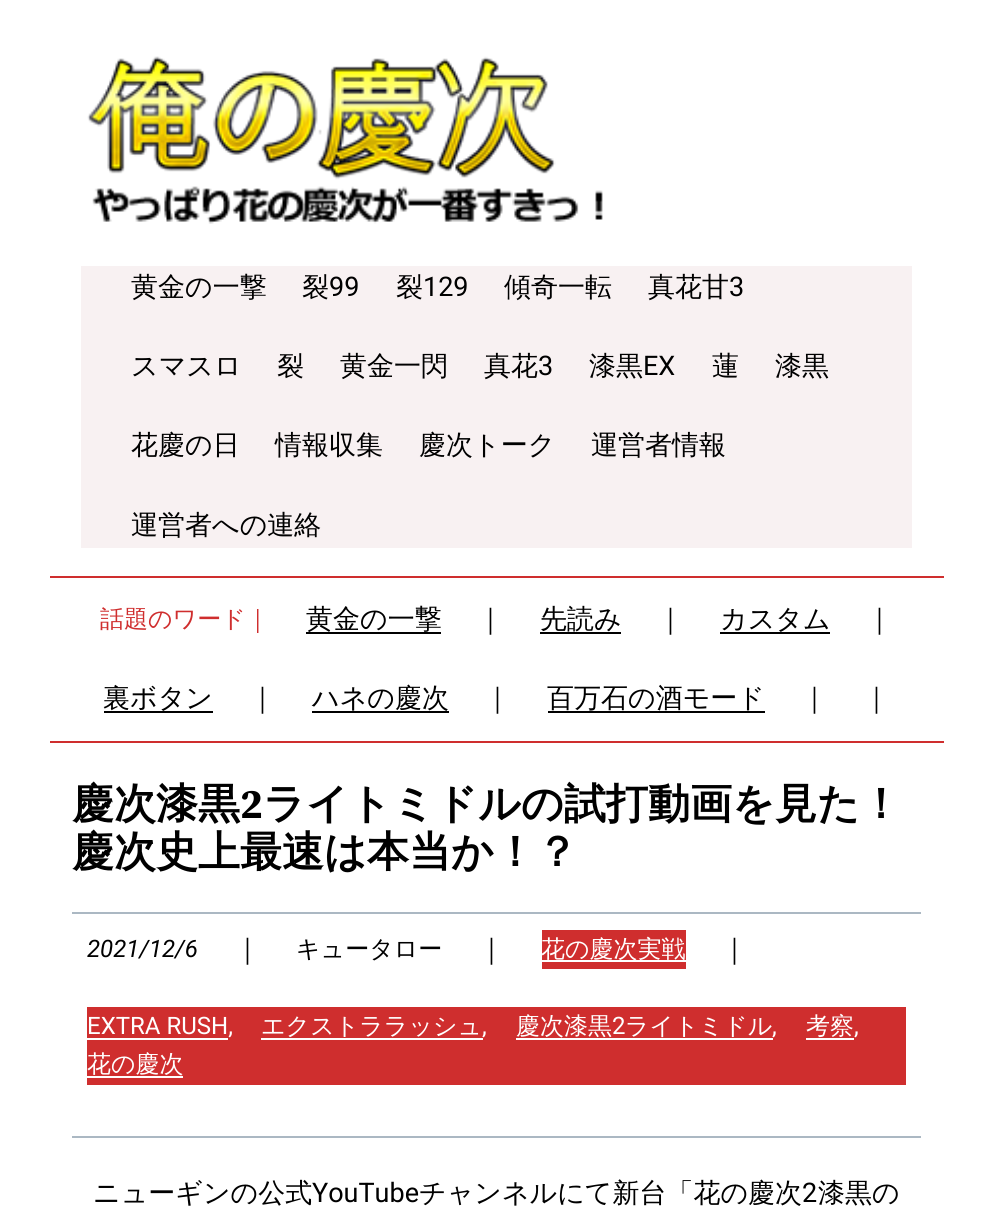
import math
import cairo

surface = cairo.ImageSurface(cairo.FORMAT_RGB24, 993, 1226)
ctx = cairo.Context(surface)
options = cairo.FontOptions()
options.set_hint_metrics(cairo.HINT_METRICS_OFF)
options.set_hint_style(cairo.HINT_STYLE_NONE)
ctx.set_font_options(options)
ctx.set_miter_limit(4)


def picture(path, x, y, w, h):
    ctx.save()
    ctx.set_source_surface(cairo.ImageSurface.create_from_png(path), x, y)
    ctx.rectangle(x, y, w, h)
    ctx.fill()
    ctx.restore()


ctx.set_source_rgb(1, 1, 1)
ctx.paint()
picture("img1.png", 87, 56, 516, 168)
ctx.set_source_rgb(0.969, 0.945, 0.949)
ctx.rectangle(81, 266, 831, 282)
ctx.fill()
ctx.select_font_face("WenQuanYi Zen Hei Medium")
ctx.set_font_size(27)
ctx.set_source_rgb(0, 0, 0)
ctx.move_to(131, 296)
ctx.show_text("黄金の一撃")
ctx.move_to(302, 296)
ctx.show_text("裂")
ctx.select_font_face("Roboto")
ctx.move_to(329, 296)
ctx.show_text("99")
ctx.select_font_face("WenQuanYi Zen Hei Medium")
ctx.move_to(396, 296)
ctx.show_text("裂")
ctx.select_font_face("Roboto")
ctx.move_to(423, 296)
ctx.show_text("129")
ctx.select_font_face("WenQuanYi Zen Hei Medium")
ctx.move_to(504, 296)
ctx.show_text("傾奇一転")
ctx.move_to(648, 296)
ctx.show_text("真花甘")
ctx.select_font_face("Roboto")
ctx.move_to(729, 296)
ctx.show_text("3")
ctx.select_font_face("WenQuanYi Zen Hei Medium")
ctx.move_to(131, 375)
ctx.show_text("スマスロ")
ctx.move_to(277, 375)
ctx.show_text("裂")
ctx.move_to(340, 375)
ctx.show_text("黄金一閃")
ctx.move_to(484, 375)
ctx.show_text("真花")
ctx.select_font_face("Roboto")
ctx.move_to(538, 375)
ctx.show_text("3")
ctx.select_font_face("WenQuanYi Zen Hei Medium")
ctx.move_to(589, 375)
ctx.show_text("漆黒")
ctx.select_font_face("Roboto")
ctx.move_to(643, 375)
ctx.show_text("EX")
ctx.select_font_face("WenQuanYi Zen Hei Medium")
ctx.move_to(712, 375)
ctx.show_text("蓮")
ctx.move_to(775, 375)
ctx.show_text("漆黒")
ctx.move_to(131, 454)
ctx.show_text("花慶の日")
ctx.move_to(275, 454)
ctx.show_text("情報収集")
ctx.move_to(419, 454)
ctx.show_text("慶次トーク")
ctx.move_to(591, 454)
ctx.show_text("運営者情報")
ctx.move_to(131, 534)
ctx.show_text("運営者への連絡")
ctx.set_source_rgb(0.812, 0.18, 0.18)
ctx.rectangle(50, 576, 894, 2)
ctx.fill()
ctx.set_font_size(24)
ctx.move_to(100, 627)
ctx.show_text("話題のワード｜")
ctx.set_source_rgb(0, 0, 0)
ctx.rectangle(306, 632, 135, 2)
ctx.fill()
ctx.set_font_size(27)
ctx.move_to(306, 628)
ctx.show_text("黄金の一撃")
ctx.move_to(477, 628)
ctx.show_text("｜")
ctx.move_to(540, 628)
ctx.show_text("先読み")
ctx.rectangle(540, 632, 81, 2)
ctx.fill()
ctx.move_to(657, 628)
ctx.show_text("｜")
ctx.move_to(720, 628)
ctx.show_text("カスタム")
ctx.rectangle(720, 632, 110, 2)
ctx.fill()
ctx.move_to(866, 628)
ctx.show_text("｜")
ctx.move_to(103, 707)
ctx.show_text("裏ボタン")
ctx.rectangle(104, 711, 109, 2)
ctx.fill()
ctx.move_to(249, 707)
ctx.show_text("｜")
ctx.move_to(312, 707)
ctx.show_text("ハネの慶次")
ctx.rectangle(312, 711, 137, 2)
ctx.fill()
ctx.move_to(484, 707)
ctx.show_text("｜")
ctx.move_to(547, 707)
ctx.show_text("百万石の酒モード")
ctx.rectangle(548, 711, 217, 2)
ctx.fill()
ctx.move_to(801, 707)
ctx.show_text("｜")
ctx.move_to(863, 707)
ctx.show_text("｜")
ctx.set_source_rgb(0.812, 0.18, 0.18)
ctx.rectangle(50, 741, 894, 2)
ctx.fill()
ctx.select_font_face("WenQuanYi Zen Hei", cairo.FONT_SLANT_NORMAL, cairo.FONT_WEIGHT_BOLD)
ctx.set_font_size(42)
ctx.set_source_rgb(0, 0, 0)
ctx.move_to(72, 818)
ctx.show_text("慶次漆黒")
ctx.select_font_face("Source Serif 4", cairo.FONT_SLANT_NORMAL, cairo.FONT_WEIGHT_BOLD)
ctx.move_to(240, 818)
ctx.show_text("2")
ctx.select_font_face("WenQuanYi Zen Hei", cairo.FONT_SLANT_NORMAL, cairo.FONT_WEIGHT_BOLD)
ctx.move_to(263, 818)
ctx.show_text("ライトミドルの試打動画を見た！")
ctx.move_to(72, 866)
ctx.show_text("慶次史上最速は本当か！？")
ctx.set_source_rgb(0.671, 0.722, 0.765)
ctx.rectangle(72, 912, 849, 2)
ctx.fill()
ctx.select_font_face("Roboto", cairo.FONT_SLANT_ITALIC)
ctx.set_font_size(24)
ctx.set_source_rgb(0, 0, 0)
ctx.move_to(87, 957)
ctx.show_text("2021/12/6")
ctx.select_font_face("WenQuanYi Zen Hei Medium")
ctx.set_font_size(27)
ctx.move_to(234, 958)
ctx.show_text("｜")
ctx.set_font_size(24)
ctx.move_to(296, 957)
ctx.show_text("キュータロー")
ctx.set_font_size(27)
ctx.move_to(478, 958)
ctx.show_text("｜")
ctx.set_source_rgb(0.812, 0.18, 0.18)
ctx.rectangle(542, 930, 144, 39)
ctx.fill()
ctx.set_source_rgb(1, 1, 1)
ctx.rectangle(542, 960, 144, 2)
ctx.fill()
ctx.set_font_size(24)
ctx.move_to(541, 957)
ctx.show_text("花の慶次実戦")
ctx.set_font_size(27)
ctx.set_source_rgb(0, 0, 0)
ctx.move_to(721, 958)
ctx.show_text("｜")
ctx.set_source_rgb(0.812, 0.18, 0.18)
ctx.rectangle(87, 1007, 819, 78)
ctx.fill()
ctx.select_font_face("Roboto")
ctx.set_font_size(24)
ctx.set_source_rgb(1, 1, 1)
ctx.move_to(87, 1034)
ctx.show_text("EXTRA RUSH,")
ctx.rectangle(87, 1038, 141, 2)
ctx.fill()
ctx.select_font_face("WenQuanYi Zen Hei Medium")
ctx.move_to(261, 1034)
ctx.show_text("エクストララッシュ")
ctx.rectangle(261, 1038, 222, 2)
ctx.fill()
ctx.select_font_face("Roboto")
ctx.move_to(482, 1034)
ctx.show_text(",")
ctx.select_font_face("WenQuanYi Zen Hei Medium")
ctx.move_to(516, 1034)
ctx.show_text("慶次漆黒")
ctx.select_font_face("Roboto")
ctx.move_to(612, 1034)
ctx.show_text("2")
ctx.select_font_face("WenQuanYi Zen Hei Medium")
ctx.move_to(625, 1034)
ctx.show_text("ライトミドル")
ctx.rectangle(516, 1038, 257, 2)
ctx.fill()
ctx.select_font_face("Roboto")
ctx.move_to(772, 1034)
ctx.show_text(",")
ctx.select_font_face("WenQuanYi Zen Hei Medium")
ctx.move_to(806, 1034)
ctx.show_text("考察")
ctx.rectangle(806, 1038, 48, 2)
ctx.fill()
ctx.select_font_face("Roboto")
ctx.move_to(854, 1034)
ctx.show_text(",")
ctx.select_font_face("WenQuanYi Zen Hei Medium")
ctx.move_to(87, 1072)
ctx.show_text("花の慶次")
ctx.rectangle(87, 1076, 96, 2)
ctx.fill()
ctx.set_source_rgb(0.671, 0.722, 0.765)
ctx.rectangle(72, 1136, 849, 2)
ctx.fill()
ctx.set_font_size(27)
ctx.set_source_rgb(0, 0, 0)
ctx.move_to(93, 1202)
ctx.show_text("ニューギンの公式")
ctx.select_font_face("Roboto")
ctx.move_to(312, 1202)
ctx.show_text("YouTube")
ctx.select_font_face("WenQuanYi Zen Hei Medium")
ctx.move_to(419, 1202)
ctx.show_text("チャンネルにて新台「花の慶次")
ctx.select_font_face("Roboto")
ctx.move_to(802, 1202)
ctx.show_text("2")
ctx.select_font_face("WenQuanYi Zen Hei Medium")
ctx.move_to(818, 1202)
ctx.show_text("漆黒の")
surface.write_to_png("page.png")
